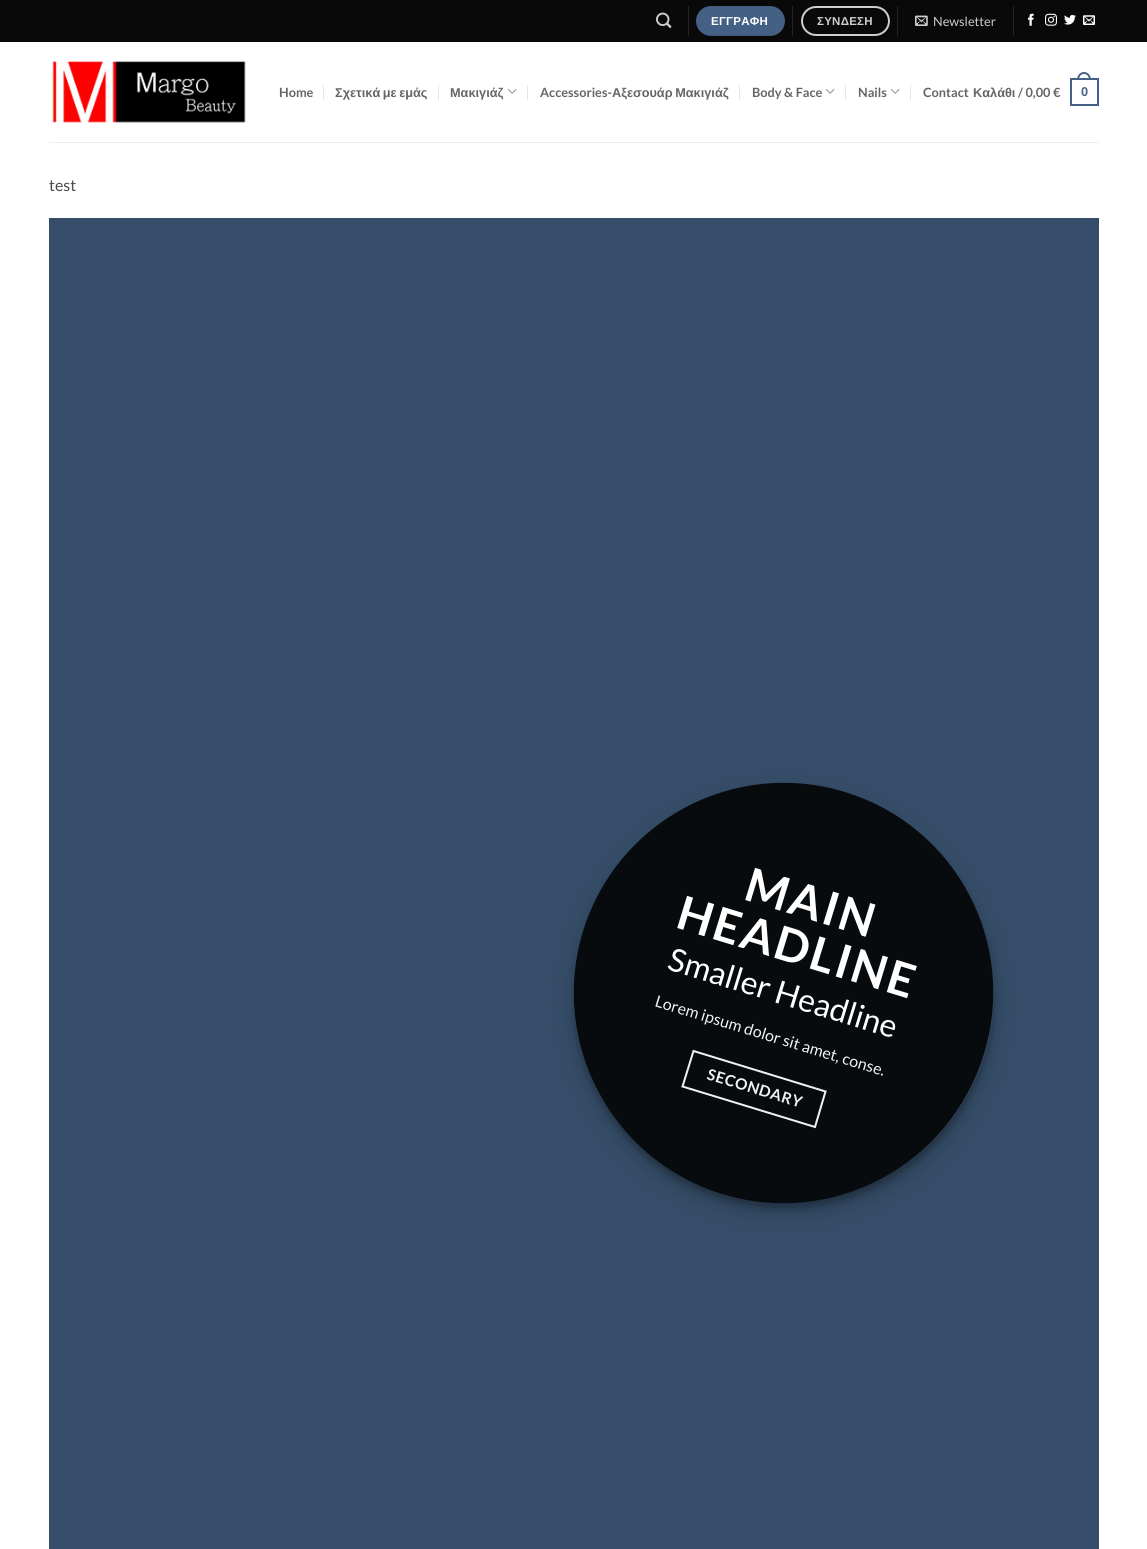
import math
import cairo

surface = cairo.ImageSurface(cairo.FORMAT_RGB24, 1147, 1549)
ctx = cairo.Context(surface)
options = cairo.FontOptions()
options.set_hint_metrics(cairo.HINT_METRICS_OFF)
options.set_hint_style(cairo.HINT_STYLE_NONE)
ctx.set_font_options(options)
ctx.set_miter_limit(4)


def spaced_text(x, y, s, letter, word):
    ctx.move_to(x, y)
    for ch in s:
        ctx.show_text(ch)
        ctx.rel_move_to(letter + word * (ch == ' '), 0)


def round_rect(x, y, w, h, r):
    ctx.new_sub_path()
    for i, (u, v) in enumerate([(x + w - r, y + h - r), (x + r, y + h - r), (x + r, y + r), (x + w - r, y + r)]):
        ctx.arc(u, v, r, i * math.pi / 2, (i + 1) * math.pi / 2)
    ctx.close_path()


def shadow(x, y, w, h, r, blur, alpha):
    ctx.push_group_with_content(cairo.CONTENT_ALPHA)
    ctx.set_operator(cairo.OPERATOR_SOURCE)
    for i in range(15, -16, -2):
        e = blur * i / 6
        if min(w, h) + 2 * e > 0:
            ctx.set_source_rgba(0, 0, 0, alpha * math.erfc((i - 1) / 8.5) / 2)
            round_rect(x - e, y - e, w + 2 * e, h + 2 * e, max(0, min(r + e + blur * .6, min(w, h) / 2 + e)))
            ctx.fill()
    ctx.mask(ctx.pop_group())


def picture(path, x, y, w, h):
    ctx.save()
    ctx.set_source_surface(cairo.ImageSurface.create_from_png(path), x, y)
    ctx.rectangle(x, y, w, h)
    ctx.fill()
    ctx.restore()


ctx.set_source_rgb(1, 1, 1)
ctx.paint()
ctx.set_source_rgb(0.039, 0.039, 0.039)
ctx.rectangle(0, 0, 1147, 42)
ctx.fill()
picture("img1.png", 656, 12, 16, 16)
ctx.set_source_rgb(0.137, 0.137, 0.137)
ctx.rectangle(688, 6, 1, 30)
ctx.fill()
ctx.set_source_rgb(0.267, 0.376, 0.518)
round_rect(696, 6, 89, 30, 15)
ctx.fill()
ctx.rectangle(696.5, 6.5, 88, 29)
ctx.set_source_rgba(0, 0, 0, 0.05)
ctx.set_line_width(1)
ctx.stroke()
ctx.select_font_face("Liberation Sans", cairo.FONT_SLANT_NORMAL, cairo.FONT_WEIGHT_BOLD)
ctx.set_font_size(11.5)
ctx.set_source_rgb(1, 1, 1)
spaced_text(711, 25, "ΕΓΓΡΑΦΗ", 0.25, 0)
ctx.set_source_rgb(0.137, 0.137, 0.137)
ctx.rectangle(792, 6, 1, 30)
ctx.fill()
round_rect(802, 7, 87, 28, 14)
ctx.set_source_rgb(0.808, 0.808, 0.808)
ctx.set_line_width(2)
ctx.stroke()
spaced_text(817, 25, "ΣΥΝΔΕΣΗ", 0.25, 0)
ctx.set_source_rgb(0.137, 0.137, 0.137)
ctx.rectangle(897, 6, 1, 30)
ctx.fill()
picture("img2.png", 915, 15, 13, 11)
ctx.select_font_face("Lato")
ctx.set_font_size(12.75)
ctx.set_source_rgb(0.808, 0.808, 0.808)
ctx.move_to(933, 26)
ctx.show_text("Newsletter")
ctx.set_source_rgb(0.137, 0.137, 0.137)
ctx.rectangle(1013, 6, 1, 30)
ctx.fill()
picture("img3.png", 1028, 13, 6, 13)
picture("img4.png", 1045, 13, 12, 13)
picture("img5.png", 1064, 14, 12, 11)
picture("img6.png", 1083, 15, 12, 10)
picture("img7.png", 52, 61, 194, 62)
ctx.select_font_face("Lato", cairo.FONT_SLANT_NORMAL, cairo.FONT_WEIGHT_BOLD)
ctx.set_source_rgb(0.396, 0.396, 0.396)
ctx.move_to(279, 97)
ctx.show_text("Home")
ctx.set_source_rgb(0.902, 0.902, 0.902)
ctx.rectangle(323, 85, 1, 15)
ctx.fill()
ctx.select_font_face("Liberation Sans", cairo.FONT_SLANT_NORMAL, cairo.FONT_WEIGHT_BOLD)
ctx.set_source_rgb(0.396, 0.396, 0.396)
spaced_text(335, 97, "Σχετικά με εμάς", 0, -1)
ctx.set_source_rgb(0.902, 0.902, 0.902)
ctx.rectangle(438, 85, 1, 15)
ctx.fill()
ctx.set_source_rgb(0.396, 0.396, 0.396)
ctx.move_to(450, 97)
ctx.show_text("Μακιγιάζ")
picture("img8.png", 507, 88, 10, 6)
ctx.set_source_rgb(0.902, 0.902, 0.902)
ctx.rectangle(527, 85, 1, 15)
ctx.fill()
ctx.select_font_face("Lato", cairo.FONT_SLANT_NORMAL, cairo.FONT_WEIGHT_BOLD)
ctx.set_source_rgb(0.396, 0.396, 0.396)
ctx.move_to(540, 97)
ctx.show_text("Accessories-")
ctx.select_font_face("Liberation Sans", cairo.FONT_SLANT_NORMAL, cairo.FONT_WEIGHT_BOLD)
spaced_text(612, 97, "Αξεσουάρ Μακιγιάζ", 0, -1)
ctx.set_source_rgb(0.902, 0.902, 0.902)
ctx.rectangle(739, 85, 1, 15)
ctx.fill()
ctx.select_font_face("Lato", cairo.FONT_SLANT_NORMAL, cairo.FONT_WEIGHT_BOLD)
ctx.set_source_rgb(0.396, 0.396, 0.396)
ctx.move_to(752, 97)
ctx.show_text("Body & Face")
picture("img8.png", 825, 88, 10, 6)
ctx.set_source_rgb(0.902, 0.902, 0.902)
ctx.rectangle(845, 85, 1, 15)
ctx.fill()
ctx.set_source_rgb(0.396, 0.396, 0.396)
ctx.move_to(858, 97)
ctx.show_text("Nails")
picture("img8.png", 890, 88, 10, 6)
ctx.set_source_rgb(0.902, 0.902, 0.902)
ctx.rectangle(910, 85, 1, 15)
ctx.fill()
ctx.set_source_rgb(0.396, 0.396, 0.396)
ctx.move_to(923, 97)
ctx.show_text("Contact")
ctx.select_font_face("Liberation Sans", cairo.FONT_SLANT_NORMAL, cairo.FONT_WEIGHT_BOLD)
ctx.move_to(973, 97)
ctx.show_text("Καλάθι")
ctx.select_font_face("Lato", cairo.FONT_SLANT_NORMAL, cairo.FONT_WEIGHT_BOLD)
ctx.move_to(1018, 97)
ctx.show_text("/ 0,00 €")
ctx.rectangle(1071, 79, 27, 26)
ctx.set_source_rgb(0.267, 0.376, 0.518)
ctx.stroke()
ctx.set_fill_rule(cairo.FILL_RULE_EVEN_ODD)
ctx.new_path()
ctx.move_to(1084, 72)
ctx.curve_to(1088.5, 72, 1091, 76, 1091, 80)
ctx.line_to(1077, 80)
ctx.curve_to(1077, 76, 1079.5, 72, 1084, 72)
ctx.close_path()
ctx.move_to(1084, 74)
ctx.curve_to(1087.5, 74, 1089, 77, 1089, 80)
ctx.line_to(1079, 80)
ctx.curve_to(1079, 77, 1080.5, 74, 1084, 74)
ctx.close_path()
ctx.fill()
ctx.select_font_face("Liberation Sans", cairo.FONT_SLANT_NORMAL, cairo.FONT_WEIGHT_BOLD)
ctx.move_to(1081, 96)
ctx.show_text("0")
ctx.set_source_rgb(0.929, 0.929, 0.929)
ctx.rectangle(49, 142, 1050, 1)
ctx.fill()
ctx.select_font_face("Lato")
ctx.set_font_size(16)
ctx.set_source_rgb(0.29, 0.29, 0.29)
ctx.move_to(49, 191)
ctx.show_text("test")
ctx.set_source_rgb(0.208, 0.302, 0.408)
ctx.rectangle(49, 218, 1050, 1331)
ctx.fill()
ctx.save()
ctx.new_path()
ctx.move_to(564, 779)
ctx.line_to(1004, 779)
ctx.line_to(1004, 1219)
ctx.line_to(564, 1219)
ctx.close_path()
ctx.move_to(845, 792)
ctx.curve_to(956, 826, 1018, 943.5, 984.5, 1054.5)
ctx.curve_to(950.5, 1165, 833, 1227.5, 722, 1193.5)
ctx.curve_to(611, 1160, 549, 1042.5, 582.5, 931.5)
ctx.curve_to(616.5, 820.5, 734, 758, 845, 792)
ctx.close_path()
ctx.clip()
ctx.set_source_rgb(0, 0, 0)
shadow(574, 789, 420, 420, 210, 3, 0.22)
ctx.restore()
ctx.save()
ctx.new_path()
ctx.move_to(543, 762)
ctx.line_to(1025, 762)
ctx.line_to(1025, 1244)
ctx.line_to(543, 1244)
ctx.close_path()
ctx.move_to(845, 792)
ctx.curve_to(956, 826, 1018, 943.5, 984.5, 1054.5)
ctx.curve_to(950.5, 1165, 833, 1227.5, 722, 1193.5)
ctx.curve_to(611, 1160, 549, 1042.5, 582.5, 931.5)
ctx.curve_to(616.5, 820.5, 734, 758, 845, 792)
ctx.close_path()
ctx.clip()
ctx.set_source_rgb(0, 0, 0)
shadow(574, 793, 420, 420, 210, 10, 0.19)
ctx.restore()
ctx.set_source_rgba(0, 0, 0, 0.86)
ctx.set_fill_rule(cairo.FILL_RULE_WINDING)
ctx.new_path()
ctx.move_to(845, 792)
ctx.curve_to(956, 826, 1018, 943, 984, 1054)
ctx.curve_to(950, 1165, 833, 1228, 722, 1194)
ctx.curve_to(611, 1160, 549, 1042, 583, 931)
ctx.curve_to(617, 821, 734, 758, 845, 792)
ctx.close_path()
ctx.fill()
ctx.select_font_face("Lato", cairo.FONT_SLANT_NORMAL, cairo.FONT_WEIGHT_BOLD)
ctx.set_font_size(46.5)
ctx.set_source_rgb(1, 1, 1)
ctx.save()
ctx.translate(742, 899)
ctx.rotate(17 * math.pi / 180)
spaced_text(0, 0, "MAIN", 2.25, 0)
ctx.restore()
ctx.save()
ctx.translate(674, 927)
ctx.rotate(17 * math.pi / 180)
spaced_text(0, 0, "HEADLINE", 2.25, 0)
ctx.restore()
ctx.select_font_face("Lato")
ctx.set_font_size(32)
ctx.save()
ctx.translate(666, 969)
ctx.rotate(17 * math.pi / 180)
ctx.move_to(0, 0)
ctx.show_text("Smaller Headline")
ctx.restore()
ctx.set_font_size(16)
ctx.set_source_rgb(0.945, 0.945, 0.945)
ctx.save()
ctx.translate(654, 1006)
ctx.rotate(17 * math.pi / 180)
ctx.move_to(0, 0)
ctx.show_text("Lorem ipsum dolor sit amet, conse.")
ctx.restore()
ctx.new_path()
ctx.move_to(693.5, 1051)
ctx.line_to(825.5, 1091.5)
ctx.line_to(815, 1127)
ctx.line_to(682.5, 1086.5)
ctx.close_path()
ctx.stroke()
ctx.select_font_face("Lato", cairo.FONT_SLANT_NORMAL, cairo.FONT_WEIGHT_BOLD)
ctx.set_font_size(15.5)
ctx.save()
ctx.translate(706, 1079)
ctx.rotate(17 * math.pi / 180)
spaced_text(0, 0, "SECONDARY", 0.5, 0)
ctx.restore()
surface.write_to_png("page.png")
